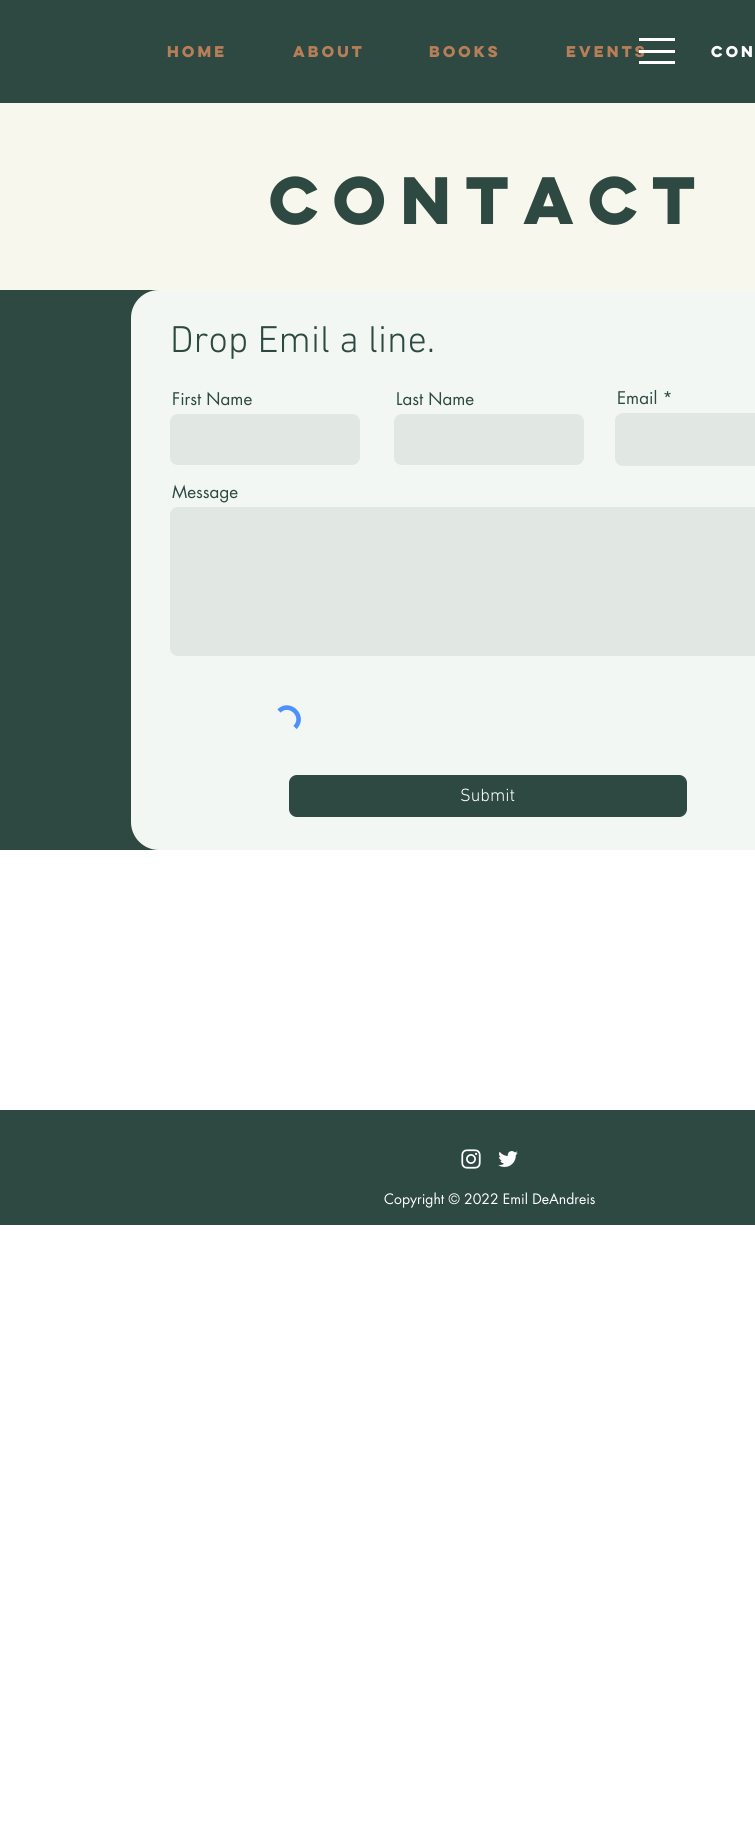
import math
import cairo

surface = cairo.ImageSurface(cairo.FORMAT_RGB24, 755, 1821)
ctx = cairo.Context(surface)
options = cairo.FontOptions()
options.set_hint_metrics(cairo.HINT_METRICS_OFF)
options.set_hint_style(cairo.HINT_STYLE_NONE)
ctx.set_font_options(options)
ctx.set_miter_limit(4)


def spaced_text(x, y, s, letter, word):
    ctx.move_to(x, y)
    for ch in s:
        ctx.show_text(ch)
        ctx.rel_move_to(letter + word * (ch == ' '), 0)


def round_rect(x, y, w, h, r):
    ctx.new_sub_path()
    for i, (u, v) in enumerate([(x + w - r, y + h - r), (x + r, y + h - r), (x + r, y + r), (x + w - r, y + r)]):
        ctx.arc(u, v, r, i * math.pi / 2, (i + 1) * math.pi / 2)
    ctx.close_path()


def picture(path, x, y, w, h):
    ctx.save()
    ctx.set_source_surface(cairo.ImageSurface.create_from_png(path), x, y)
    ctx.rectangle(x, y, w, h)
    ctx.fill()
    ctx.restore()


ctx.set_source_rgb(1, 1, 1)
ctx.paint()
ctx.set_source_rgb(0.18, 0.286, 0.259)
ctx.rectangle(0, 0, 755, 103)
ctx.fill()
ctx.set_source_rgb(1, 1, 1)
ctx.rectangle(639, 61, 36, 3)
ctx.fill()
ctx.rectangle(639, 38, 36, 3)
ctx.fill()
ctx.select_font_face("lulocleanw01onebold", cairo.FONT_SLANT_NORMAL, cairo.FONT_WEIGHT_BOLD)
ctx.set_font_size(14)
ctx.set_source_rgb(0.722, 0.494, 0.345)
ctx.move_to(566, 57)
ctx.show_text("Events")
ctx.set_source_rgb(1, 1, 1)
ctx.rectangle(639, 50, 36, 3)
ctx.fill()
ctx.set_source_rgb(0.722, 0.494, 0.345)
ctx.move_to(167, 57)
ctx.show_text("Home")
ctx.move_to(293, 57)
ctx.show_text("About")
ctx.move_to(429, 57)
ctx.show_text("Books")
ctx.set_source_rgb(1, 1, 1)
ctx.move_to(711, 57)
ctx.show_text("Con")
ctx.set_source_rgb(0.965, 0.965, 0.933)
ctx.rectangle(0, 103, 755, 187)
ctx.fill()
ctx.set_font_size(60)
ctx.set_source_rgb(0.18, 0.286, 0.259)
spaced_text(269, 224, "Contact", 1.25, 0)
ctx.rectangle(0, 290, 159, 560)
ctx.fill()
ctx.set_source_rgb(0.953, 0.965, 0.957)
round_rect(131, 290, 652, 560, 28)
ctx.fill()
ctx.select_font_face("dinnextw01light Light")
ctx.set_font_size(38)
ctx.set_source_rgb(0.18, 0.286, 0.259)
ctx.move_to(170, 352)
ctx.show_text("Drop Emil a line.")
ctx.select_font_face("futura")
ctx.set_font_size(17)
ctx.move_to(172, 405)
ctx.show_text("First Name")
ctx.set_source_rgb(0.882, 0.906, 0.89)
round_rect(170, 414, 190, 51, 8)
ctx.fill()
ctx.set_source_rgb(0.18, 0.286, 0.259)
ctx.move_to(396, 405)
ctx.show_text("Last Name")
ctx.set_source_rgb(0.882, 0.906, 0.89)
round_rect(394, 414, 190, 51, 8)
ctx.fill()
ctx.set_source_rgb(0.18, 0.286, 0.259)
ctx.move_to(617, 404)
ctx.show_text("Email *")
ctx.set_source_rgb(0.882, 0.906, 0.89)
round_rect(615, 413, 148, 53, 8)
ctx.fill()
ctx.set_source_rgb(0.18, 0.286, 0.259)
ctx.move_to(172, 498)
ctx.show_text("Message")
ctx.set_source_rgb(0.882, 0.906, 0.89)
round_rect(170, 507, 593, 149, 8)
ctx.fill()
ctx.new_path()
ctx.move_to(279, 711)
ctx.curve_to(289.5, 700.5, 306, 716.5, 295, 727.5)
ctx.set_source_rgb(0.302, 0.565, 0.996)
ctx.set_line_width(4.6)
ctx.stroke()
ctx.set_source_rgb(0.18, 0.286, 0.259)
round_rect(289.5, 775.5, 397, 41, 7.5)
ctx.fill_preserve()
ctx.set_line_width(1)
ctx.stroke()
ctx.select_font_face("dinnextw01light Light")
ctx.set_font_size(18)
ctx.set_source_rgb(1, 1, 1)
ctx.move_to(460, 801)
ctx.show_text("Submit")
ctx.set_source_rgb(0.18, 0.286, 0.259)
ctx.rectangle(0, 1110, 755, 115)
ctx.fill()
picture("img1.png", 461, 1149, 20, 20)
picture("img2.png", 498, 1151, 20, 17)
ctx.select_font_face("futura")
ctx.set_font_size(14)
ctx.set_source_rgb(1, 1, 1)
ctx.move_to(384, 1204)
ctx.show_text("Copyright © 2022 Emil DeAndreis")
surface.write_to_png("page.png")
